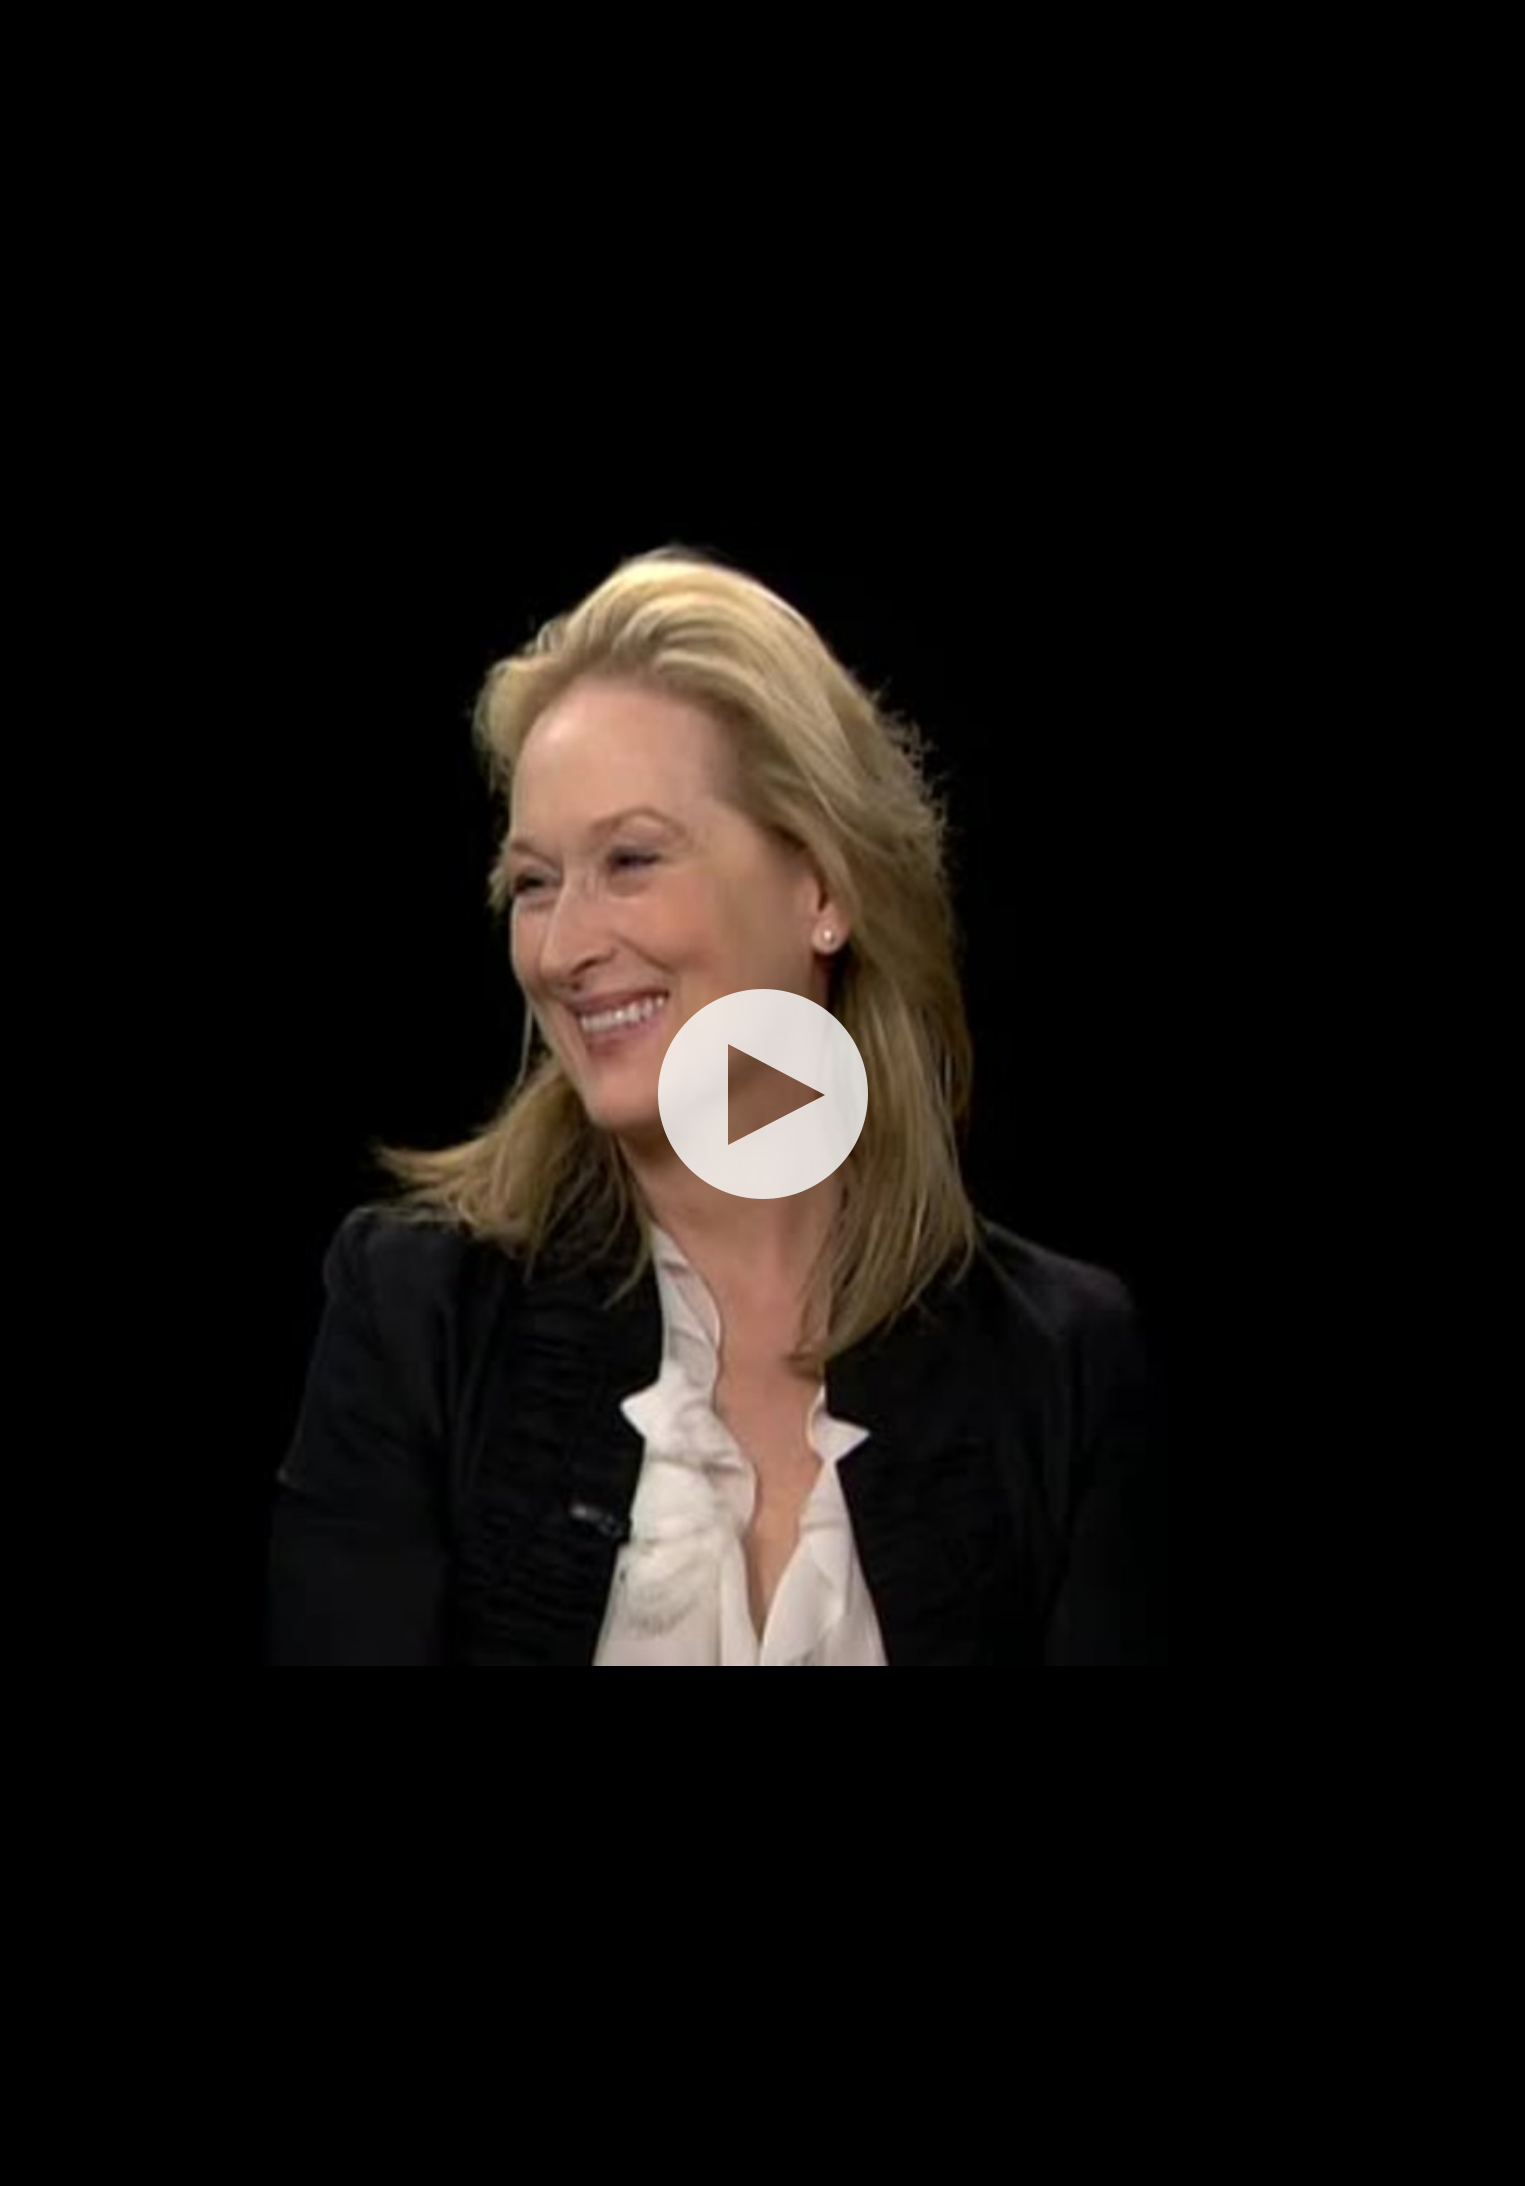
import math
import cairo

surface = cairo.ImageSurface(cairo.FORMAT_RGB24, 1525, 2186)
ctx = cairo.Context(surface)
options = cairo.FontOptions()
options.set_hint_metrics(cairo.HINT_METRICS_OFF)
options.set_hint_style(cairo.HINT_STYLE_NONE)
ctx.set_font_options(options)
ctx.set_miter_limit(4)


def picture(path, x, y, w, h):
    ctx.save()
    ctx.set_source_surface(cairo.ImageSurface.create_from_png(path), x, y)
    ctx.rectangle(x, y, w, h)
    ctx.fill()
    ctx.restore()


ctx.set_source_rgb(0, 0, 0)
ctx.paint()
picture("img1.png", 263, 522, 905, 1144)
ctx.set_source_rgba(1, 1, 1, 0.8)
ctx.new_path()
ctx.move_to(763, 989)
ctx.curve_to(705, 989, 658, 1036, 658, 1094)
ctx.curve_to(658, 1152, 705, 1199, 763, 1199)
ctx.curve_to(821, 1199, 868, 1152, 868, 1094)
ctx.curve_to(868, 1036, 821, 989, 763, 989)
ctx.close_path()
ctx.move_to(728, 1145)
ctx.line_to(728, 1044)
ctx.line_to(825, 1095)
ctx.close_path()
ctx.fill()
surface.write_to_png("page.png")
